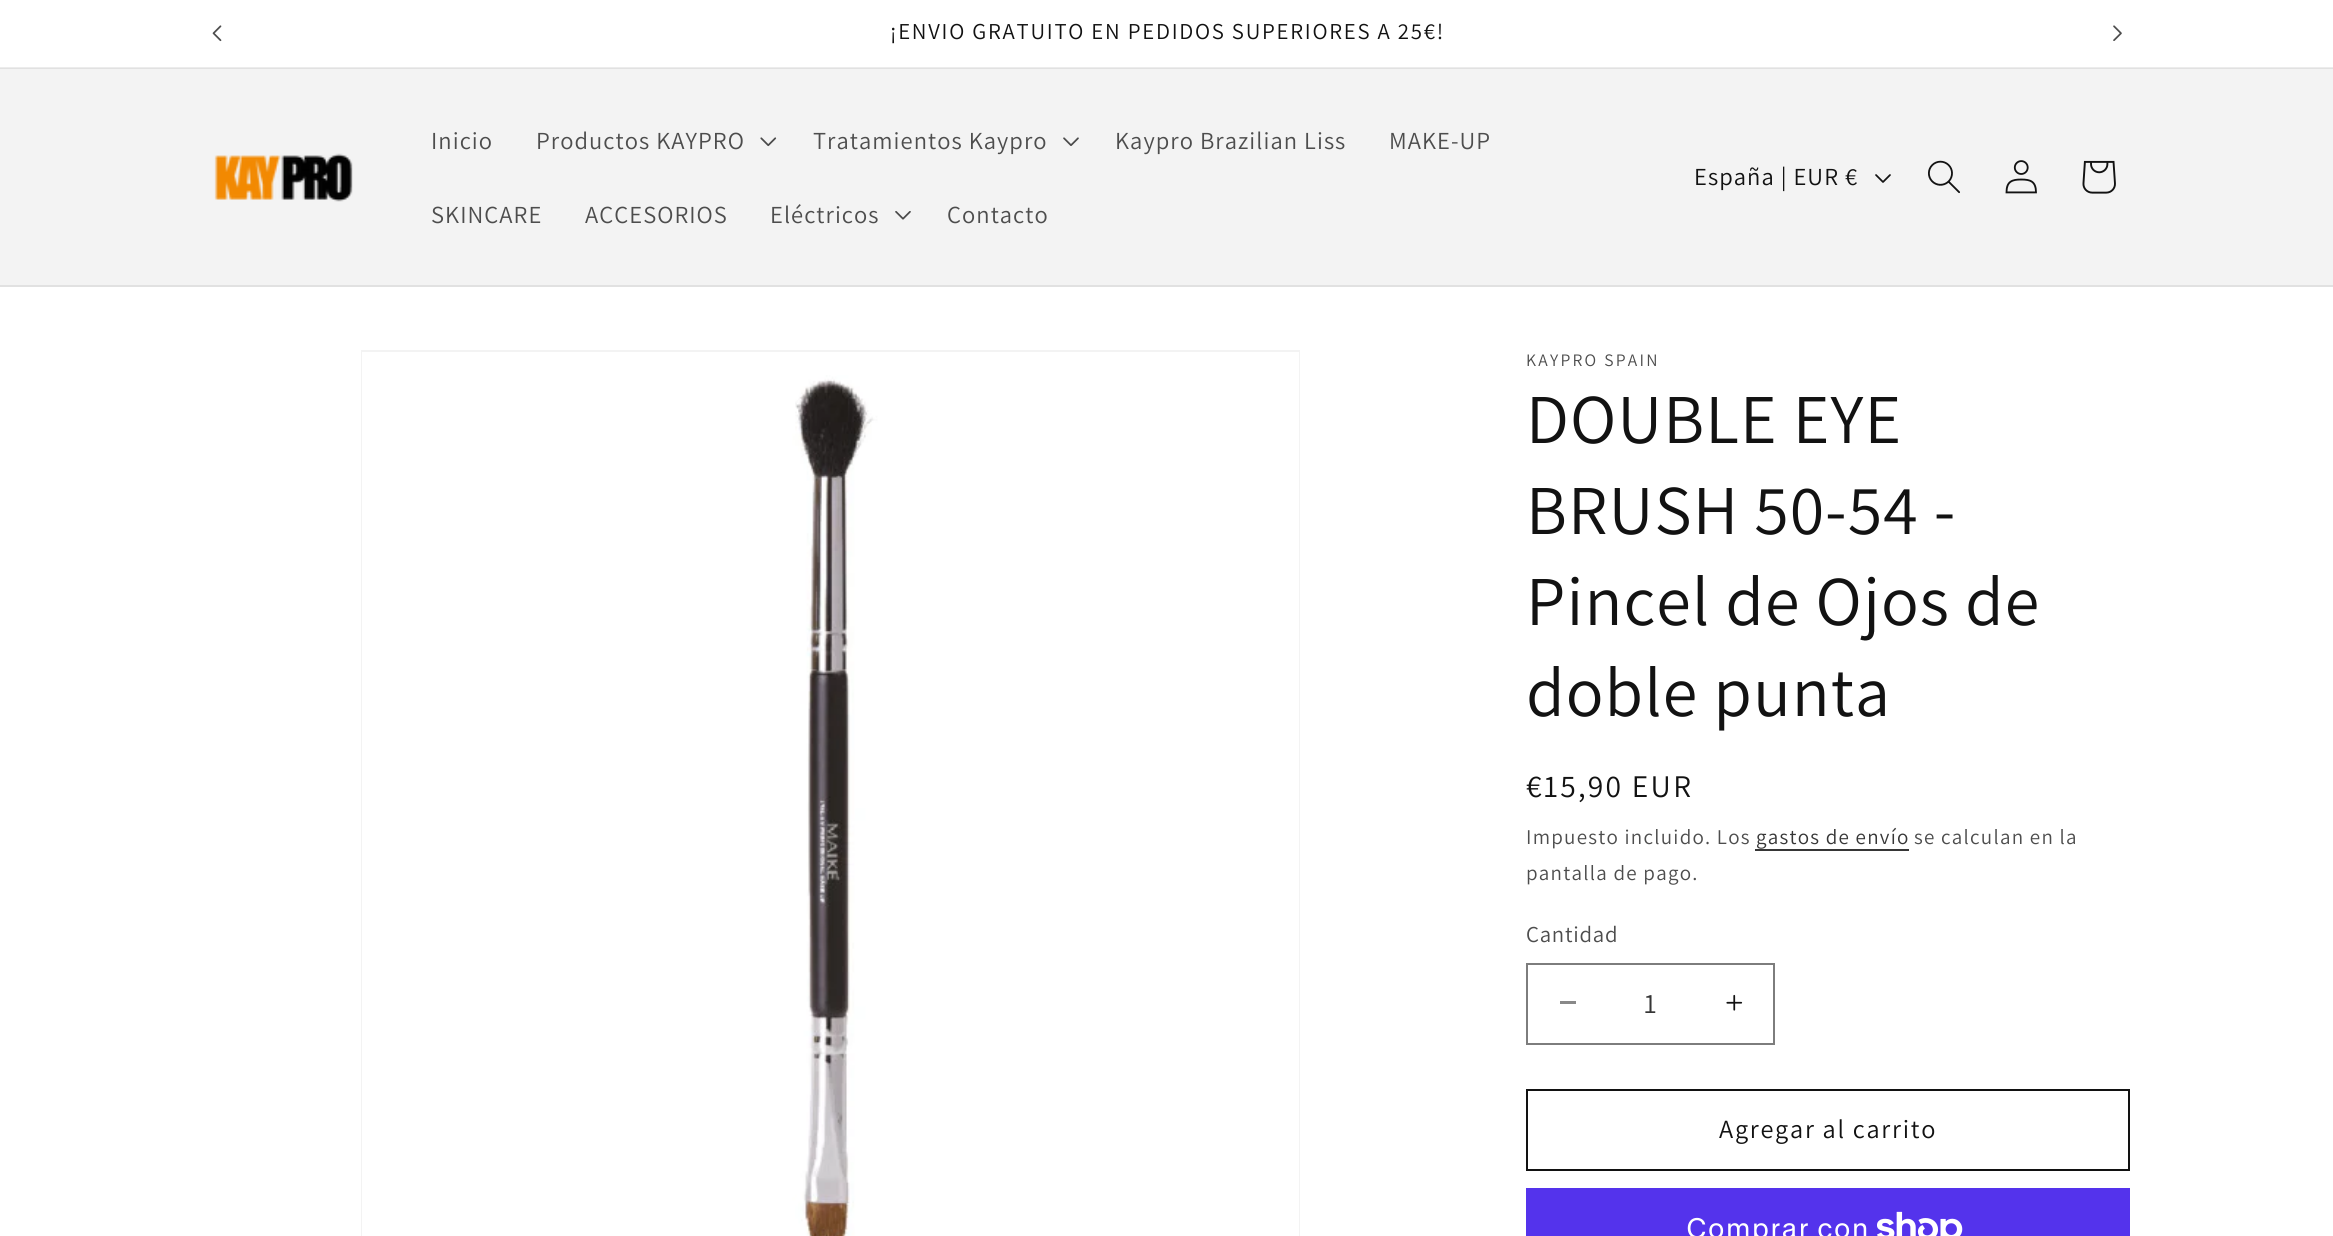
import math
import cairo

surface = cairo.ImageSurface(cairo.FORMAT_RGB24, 2333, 1236)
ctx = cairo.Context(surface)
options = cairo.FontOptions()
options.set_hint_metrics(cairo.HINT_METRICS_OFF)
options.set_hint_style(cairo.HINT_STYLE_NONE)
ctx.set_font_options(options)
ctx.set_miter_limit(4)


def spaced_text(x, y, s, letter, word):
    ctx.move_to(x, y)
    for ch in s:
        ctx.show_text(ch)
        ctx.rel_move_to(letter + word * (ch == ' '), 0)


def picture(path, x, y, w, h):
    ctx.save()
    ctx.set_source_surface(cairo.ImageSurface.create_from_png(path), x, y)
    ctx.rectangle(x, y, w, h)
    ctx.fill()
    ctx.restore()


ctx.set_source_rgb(1, 1, 1)
ctx.paint()
ctx.set_source_rgb(0.925, 0.925, 0.925)
ctx.rectangle(0, 67, 2333, 1)
ctx.fill()
picture("img1.png", 212, 25, 10, 17)
ctx.select_font_face("Assistant")
ctx.set_font_size(22.75)
ctx.set_source_rgb(0.071, 0.071, 0.071)
spaced_text(890, 39, "¡ENVIO GRATUITO EN PEDIDOS SUPERIORES A 25€!", 1.75, 0)
picture("img2.png", 2113, 25, 9, 16)
ctx.set_source_rgb(0.953, 0.953, 0.953)
ctx.rectangle(0, 69, 2333, 216)
ctx.fill()
ctx.set_source_rgb(0.882, 0.882, 0.882)
ctx.rectangle(0, 68, 2333, 1)
ctx.fill()
ctx.rectangle(0, 285, 2333, 2)
ctx.fill()
picture("img3.png", 214, 153, 139, 49)
ctx.set_font_size(24.5)
ctx.set_source_rgb(0.302, 0.302, 0.302)
spaced_text(431, 149, "Inicio", 1.05, 0)
spaced_text(536, 149, "Productos KAYPRO", 1.05, 0)
picture("img4.png", 760, 137, 17, 10)
spaced_text(813, 149, "Tratamientos Kaypro", 1.05, 0)
picture("img5.png", 1063, 137, 16, 9)
spaced_text(1115, 149, "Kaypro Brazilian Liss", 1.05, 0)
spaced_text(1389, 149, "MAKE-UP", 1.05, 0)
spaced_text(431, 223, "SKINCARE", 1.05, 0)
spaced_text(585, 223, "ACCESORIOS", 1.05, 0)
spaced_text(770, 223, "Eléctricos", 1.05, 0)
picture("img6.png", 895, 211, 16, 9)
spaced_text(947, 223, "Contacto", 1.05, 0)
ctx.set_source_rgb(0.071, 0.071, 0.071)
spaced_text(1694, 185, "España | EUR €", 1.05, 0)
picture("img7.png", 1875, 174, 16, 9)
picture("img8.png", 1928, 160, 32, 34)
picture("img9.png", 2005, 160, 32, 34)
picture("img10.png", 2082, 160, 34, 34)
ctx.rectangle(362, 351, 937, 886)
ctx.set_source_rgb(0.953, 0.953, 0.953)
ctx.stroke()
picture("img11.png", 362, 352, 937, 884)
ctx.set_font_size(17.5)
ctx.set_source_rgb(0.302, 0.302, 0.302)
spaced_text(1526, 366, "KAYPRO SPAIN", 2.25, 0)
ctx.set_font_size(70)
ctx.set_source_rgb(0.071, 0.071, 0.071)
spaced_text(1526, 443, "DOUBLE EYE", 1.05, 0)
spaced_text(1526, 534, "BRUSH 50-54 -", 1.05, 0)
spaced_text(1526, 625, "Pincel de Ojos de", 1.05, 0)
spaced_text(1526, 716, "doble punta", 1.05, 0)
ctx.set_font_size(31.5)
spaced_text(1526, 797, "€15,90 EUR", 2.25, 0)
ctx.set_font_size(21)
ctx.set_source_rgb(0.302, 0.302, 0.302)
spaced_text(1526, 844, "Impuesto incluido. Los", 1.25, 0)
ctx.set_source_rgb(0.212, 0.212, 0.212)
spaced_text(1756, 844, "gastos de envío", 1.25, 0)
ctx.rectangle(1755, 849, 154, 2)
ctx.fill()
ctx.set_source_rgb(0.302, 0.302, 0.302)
spaced_text(1914, 844, "se calculan en la", 1.25, 0)
spaced_text(1526, 880, "pantalla de pago.", 1.25, 0)
ctx.set_font_size(22.75)
spaced_text(1526, 942, "Cantidad", 0.75, 0)
ctx.set_source_rgb(0.537, 0.537, 0.537)
ctx.rectangle(1560, 1001, 16, 3)
ctx.fill()
picture("img12.png", 1726, 994, 17, 17)
ctx.rectangle(1527, 964, 247, 80)
ctx.set_source_rgb(0.49, 0.49, 0.49)
ctx.stroke()
ctx.set_font_size(28)
ctx.set_source_rgb(0.212, 0.212, 0.212)
ctx.move_to(1644, 1013)
ctx.show_text("1")
ctx.rectangle(1527, 1090, 602, 80)
ctx.set_source_rgb(0.071, 0.071, 0.071)
ctx.stroke()
ctx.set_font_size(26.25)
spaced_text(1719, 1138, "Agregar al carrito", 1.75, 0)
ctx.set_source_rgb(0.329, 0.2, 0.922)
ctx.rectangle(1526, 1188, 604, 48)
ctx.fill()
ctx.select_font_face("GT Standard")
ctx.set_font_size(28)
ctx.set_source_rgb(1, 1, 1)
spaced_text(1686, 1238, "Comprar con", 1.05, 0)
picture("img13.png", 1877, 1211, 86, 25)
surface.write_to_png("page.png")
